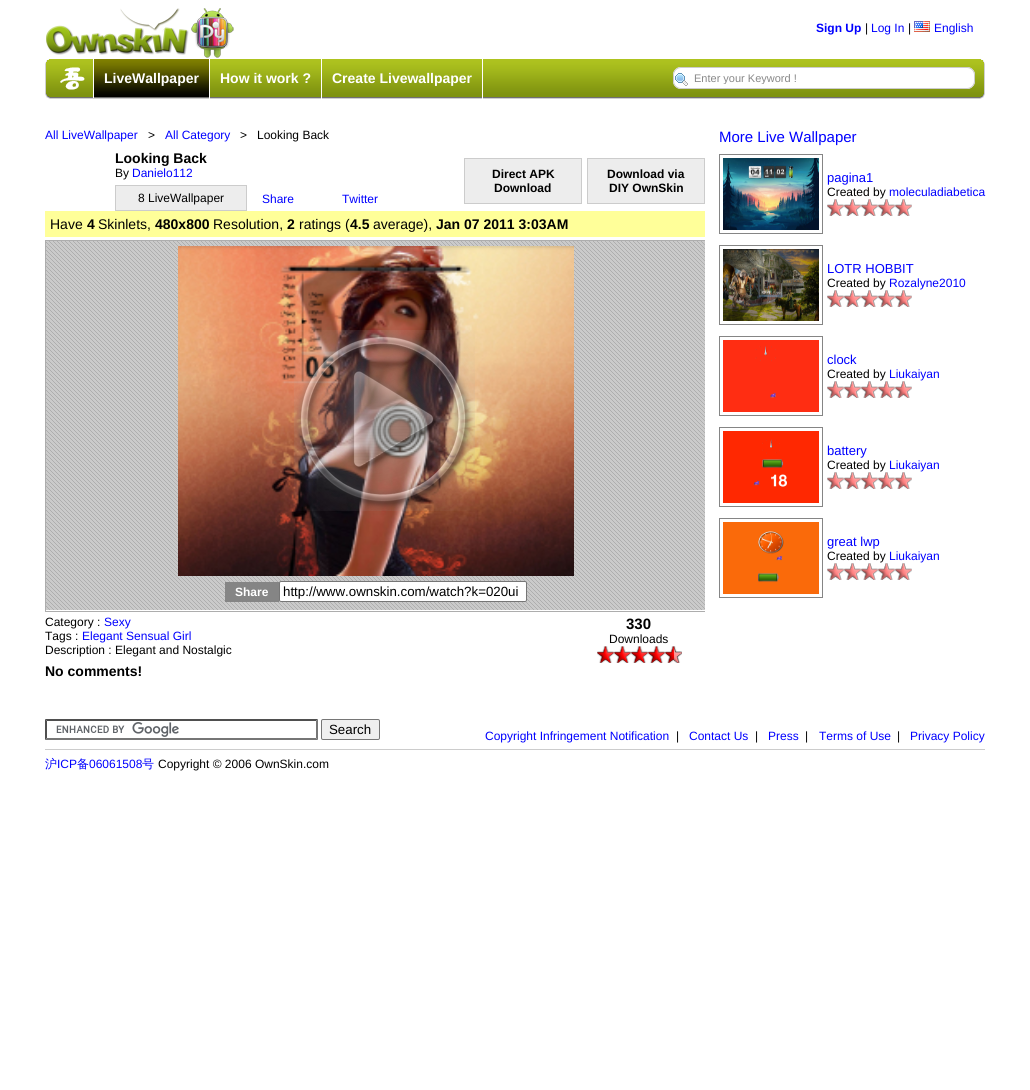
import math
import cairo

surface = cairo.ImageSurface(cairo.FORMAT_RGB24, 1030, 1090)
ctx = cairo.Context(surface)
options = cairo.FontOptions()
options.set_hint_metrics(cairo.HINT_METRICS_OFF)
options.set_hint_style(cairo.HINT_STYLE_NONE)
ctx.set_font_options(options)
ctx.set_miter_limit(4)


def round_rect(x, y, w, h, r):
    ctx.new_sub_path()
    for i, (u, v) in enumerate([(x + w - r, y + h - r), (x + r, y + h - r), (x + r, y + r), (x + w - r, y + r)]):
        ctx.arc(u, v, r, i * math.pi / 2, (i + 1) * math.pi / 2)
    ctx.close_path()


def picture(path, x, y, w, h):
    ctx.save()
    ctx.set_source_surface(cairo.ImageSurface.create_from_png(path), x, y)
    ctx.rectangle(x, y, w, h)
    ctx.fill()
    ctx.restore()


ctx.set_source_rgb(1, 1, 1)
ctx.paint()
picture("img1.png", 46, 8, 188, 50)
ctx.select_font_face("Liberation Sans", cairo.FONT_SLANT_NORMAL, cairo.FONT_WEIGHT_BOLD)
ctx.set_font_size(12)
ctx.set_source_rgb(0, 0, 1)
ctx.move_to(816, 32)
ctx.show_text("Sign Up")
ctx.select_font_face("Liberation Sans")
ctx.set_source_rgb(0, 0, 0)
ctx.move_to(865, 32)
ctx.show_text("|")
ctx.set_source_rgb(0, 0, 1)
ctx.move_to(871, 32)
ctx.show_text("Log In")
ctx.set_source_rgb(0, 0, 0)
ctx.move_to(908, 32)
ctx.show_text("|")
picture("img2.png", 914, 21, 16, 11)
ctx.set_source_rgb(0, 0, 1)
ctx.move_to(934, 32)
ctx.show_text("English")
picture("img3.png", 45, 59, 7, 40)
picture("img4.png", 52, 59, 926, 40)
ctx.set_source_rgb(1, 1, 1)
ctx.rectangle(93, 59, 1, 39)
ctx.fill()
picture("img5.png", 60, 67, 25, 23)
ctx.rectangle(209, 59, 1, 40)
ctx.fill()
picture("img6.png", 94, 59, 115, 38)
ctx.select_font_face("Liberation Sans", cairo.FONT_SLANT_NORMAL, cairo.FONT_WEIGHT_BOLD)
ctx.set_font_size(14)
ctx.move_to(104, 83)
ctx.show_text("LiveWallpaper")
ctx.rectangle(321, 59, 1, 40)
ctx.fill()
ctx.move_to(220, 83)
ctx.show_text("How it work ?")
ctx.rectangle(482, 59, 1, 40)
ctx.fill()
ctx.move_to(332, 83)
ctx.show_text("Create Livewallpaper")
round_rect(673, 67, 302, 22, 8)
ctx.fill()
picture("img7.png", 675, 73, 13, 13)
round_rect(673.5, 67.5, 301, 21, 7.5)
ctx.set_source_rgb(0.8, 0.8, 0.8)
ctx.set_line_width(1)
ctx.stroke()
ctx.save()
ctx.rectangle(694, 72, 280, 12)
ctx.clip()
ctx.select_font_face("Liberation Sans")
ctx.set_font_size(11)
ctx.set_source_rgb(0.533, 0.533, 0.533)
ctx.move_to(694, 82)
ctx.show_text("Enter your Keyword !")
ctx.restore()
picture("img8.png", 978, 59, 7, 40)
ctx.select_font_face("Liberation Sans")
ctx.set_font_size(12)
ctx.set_source_rgb(0, 0, 1)
ctx.move_to(45, 139)
ctx.show_text("All LiveWallpaper")
ctx.set_source_rgb(0, 0, 0)
ctx.move_to(148, 139)
ctx.show_text(">")
ctx.set_source_rgb(0, 0, 1)
ctx.move_to(165, 139)
ctx.show_text("All Category")
ctx.set_source_rgb(0, 0, 0)
ctx.move_to(240, 139)
ctx.show_text(">   Looking Back")
ctx.select_font_face("Liberation Sans", cairo.FONT_SLANT_NORMAL, cairo.FONT_WEIGHT_BOLD)
ctx.set_font_size(14)
ctx.move_to(115, 163)
ctx.show_text("Looking Back")
ctx.select_font_face("Liberation Sans")
ctx.set_font_size(12)
ctx.move_to(115, 177)
ctx.show_text("By")
ctx.set_source_rgb(0, 0, 1)
ctx.move_to(132, 177)
ctx.show_text("Danielo112")
ctx.set_source_rgb(0.929, 0.929, 0.929)
ctx.rectangle(115.5, 185.5, 131, 25)
ctx.fill_preserve()
ctx.set_source_rgb(0.8, 0.8, 0.8)
ctx.stroke()
ctx.set_source_rgb(0, 0, 0)
ctx.move_to(138, 202)
ctx.show_text("8 LiveWallpaper")
ctx.set_source_rgb(0.929, 0.929, 0.929)
ctx.rectangle(464.5, 158.5, 117, 45)
ctx.fill_preserve()
ctx.set_source_rgb(0.8, 0.8, 0.8)
ctx.stroke()
ctx.select_font_face("Liberation Sans", cairo.FONT_SLANT_NORMAL, cairo.FONT_WEIGHT_BOLD)
ctx.set_source_rgb(0, 0, 0)
ctx.move_to(492, 178)
ctx.show_text("Direct APK")
ctx.move_to(494, 192)
ctx.show_text("Download")
ctx.set_source_rgb(0.929, 0.929, 0.929)
ctx.rectangle(587.5, 158.5, 117, 45)
ctx.fill_preserve()
ctx.set_source_rgb(0.8, 0.8, 0.8)
ctx.stroke()
ctx.set_source_rgb(0, 0, 0)
ctx.move_to(607, 178)
ctx.show_text("Download via")
ctx.move_to(609, 192)
ctx.show_text("DIY OwnSkin")
ctx.select_font_face("Liberation Sans")
ctx.set_source_rgb(0, 0, 1)
ctx.move_to(262, 203)
ctx.show_text("Share")
ctx.move_to(342, 203)
ctx.show_text("Twitter")
ctx.set_source_rgb(1, 1, 0.6)
ctx.rectangle(45, 211, 660, 26)
ctx.fill()
ctx.set_font_size(14)
ctx.set_source_rgb(0, 0, 0)
ctx.move_to(50, 229)
ctx.show_text("Have")
ctx.select_font_face("Liberation Sans", cairo.FONT_SLANT_NORMAL, cairo.FONT_WEIGHT_BOLD)
ctx.move_to(87, 229)
ctx.show_text("4")
ctx.select_font_face("Liberation Sans")
ctx.move_to(98, 229)
ctx.show_text("Skinlets,")
ctx.select_font_face("Liberation Sans", cairo.FONT_SLANT_NORMAL, cairo.FONT_WEIGHT_BOLD)
ctx.move_to(155, 229)
ctx.show_text("480x800")
ctx.select_font_face("Liberation Sans")
ctx.move_to(213, 229)
ctx.show_text("Resolution,")
ctx.select_font_face("Liberation Sans", cairo.FONT_SLANT_NORMAL, cairo.FONT_WEIGHT_BOLD)
ctx.move_to(287, 229)
ctx.show_text("2")
ctx.select_font_face("Liberation Sans")
ctx.move_to(299, 229)
ctx.show_text("ratings (")
ctx.select_font_face("Liberation Sans", cairo.FONT_SLANT_NORMAL, cairo.FONT_WEIGHT_BOLD)
ctx.move_to(350, 229)
ctx.show_text("4.5")
ctx.select_font_face("Liberation Sans")
ctx.move_to(373, 229)
ctx.show_text("average),")
ctx.select_font_face("Liberation Sans", cairo.FONT_SLANT_NORMAL, cairo.FONT_WEIGHT_BOLD)
ctx.move_to(436, 229)
ctx.show_text("Jan 07 2011 3:03AM")
picture("img9.png", 46, 241, 659, 369)
ctx.save()
ctx.rectangle(45, 150, 660, 513)
ctx.clip()
ctx.rectangle(45.5, 240.5, 661, 371)
ctx.set_source_rgb(0.678, 0.678, 0.678)
ctx.stroke()
ctx.restore()
picture("img10.png", 178, 246, 396, 330)
picture("img11.png", 294, 330, 181, 181)
ctx.set_source_rgb(0.522, 0.522, 0.522)
ctx.rectangle(225, 582, 54, 20)
ctx.fill()
ctx.set_font_size(12)
ctx.set_source_rgb(1, 1, 1)
ctx.move_to(235, 596)
ctx.show_text("Share")
round_rect(279.5, 581.5, 247, 20, 1.5)
ctx.fill_preserve()
ctx.set_source_rgb(0.463, 0.463, 0.463)
ctx.stroke()
ctx.select_font_face("Liberation Sans")
ctx.set_font_size(13.3)
ctx.set_source_rgb(0, 0, 0)
ctx.move_to(283, 596)
ctx.show_text("http://www.ownskin.com/watch?k=020ui")
ctx.set_font_size(12)
ctx.move_to(45, 626)
ctx.show_text("Category :")
ctx.set_source_rgb(0, 0, 1)
ctx.move_to(104, 626)
ctx.show_text("Sexy")
ctx.set_source_rgb(0, 0, 0)
ctx.move_to(45, 640)
ctx.show_text("Tags :")
ctx.set_source_rgb(0, 0, 1)
ctx.move_to(82, 640)
ctx.show_text("Elegant Sensual Girl")
ctx.set_source_rgb(0, 0, 0)
ctx.move_to(45, 654)
ctx.show_text("Description : Elegant and Nostalgic")
ctx.select_font_face("Liberation Sans", cairo.FONT_SLANT_NORMAL, cairo.FONT_WEIGHT_BOLD)
ctx.set_font_size(15)
ctx.move_to(626, 629)
ctx.show_text("330")
ctx.select_font_face("Liberation Sans")
ctx.set_font_size(12)
ctx.move_to(609, 643)
ctx.show_text("Downloads")
picture("img12.png", 597, 646, 17, 17)
picture("img12.png", 614, 646, 17, 17)
picture("img12.png", 631, 646, 17, 17)
picture("img12.png", 648, 646, 17, 17)
picture("img13.png", 665, 646, 17, 17)
ctx.set_font_size(15)
ctx.set_source_rgb(0, 0, 1)
ctx.move_to(719, 142)
ctx.show_text("More Live Wallpaper")
ctx.rectangle(719.5, 154.5, 103, 79)
ctx.set_source_rgb(0.522, 0.522, 0.522)
ctx.stroke()
picture("img14.png", 723, 158, 96, 72)
ctx.set_font_size(13)
ctx.set_source_rgb(0, 0, 1)
ctx.move_to(827, 182)
ctx.show_text("pagina1")
ctx.set_font_size(12)
ctx.set_source_rgb(0, 0, 0)
ctx.move_to(827, 196)
ctx.show_text("Created by")
ctx.set_source_rgb(0, 0, 1)
ctx.move_to(889, 196)
ctx.show_text("moleculadiabetica")
picture("img15.png", 827, 199, 17, 17)
picture("img15.png", 844, 199, 17, 17)
picture("img15.png", 861, 199, 17, 17)
picture("img15.png", 878, 199, 17, 17)
picture("img15.png", 895, 199, 17, 17)
ctx.rectangle(719.5, 245.5, 103, 79)
ctx.set_source_rgb(0.522, 0.522, 0.522)
ctx.stroke()
picture("img16.png", 723, 249, 96, 72)
ctx.set_font_size(13)
ctx.set_source_rgb(0, 0, 1)
ctx.move_to(827, 273)
ctx.show_text("LOTR HOBBIT")
ctx.set_font_size(12)
ctx.set_source_rgb(0, 0, 0)
ctx.move_to(827, 287)
ctx.show_text("Created by")
ctx.set_source_rgb(0, 0, 1)
ctx.move_to(889, 287)
ctx.show_text("Rozalyne2010")
picture("img15.png", 827, 290, 17, 17)
picture("img15.png", 844, 290, 17, 17)
picture("img15.png", 861, 290, 17, 17)
picture("img15.png", 878, 290, 17, 17)
picture("img15.png", 895, 290, 17, 17)
ctx.rectangle(719.5, 336.5, 103, 79)
ctx.set_source_rgb(0.522, 0.522, 0.522)
ctx.stroke()
picture("img17.png", 723, 340, 96, 72)
ctx.set_font_size(13)
ctx.set_source_rgb(0, 0, 1)
ctx.move_to(827, 364)
ctx.show_text("clock")
ctx.set_font_size(12)
ctx.set_source_rgb(0, 0, 0)
ctx.move_to(827, 378)
ctx.show_text("Created by")
ctx.set_source_rgb(0, 0, 1)
ctx.move_to(889, 378)
ctx.show_text("Liukaiyan")
picture("img15.png", 827, 381, 17, 17)
picture("img15.png", 844, 381, 17, 17)
picture("img15.png", 861, 381, 17, 17)
picture("img15.png", 878, 381, 17, 17)
picture("img15.png", 895, 381, 17, 17)
ctx.rectangle(719.5, 427.5, 103, 79)
ctx.set_source_rgb(0.522, 0.522, 0.522)
ctx.stroke()
picture("img18.png", 723, 431, 96, 72)
ctx.set_font_size(13)
ctx.set_source_rgb(0, 0, 1)
ctx.move_to(827, 455)
ctx.show_text("battery")
ctx.set_font_size(12)
ctx.set_source_rgb(0, 0, 0)
ctx.move_to(827, 469)
ctx.show_text("Created by")
ctx.set_source_rgb(0, 0, 1)
ctx.move_to(889, 469)
ctx.show_text("Liukaiyan")
picture("img15.png", 827, 472, 17, 17)
picture("img15.png", 844, 472, 17, 17)
picture("img15.png", 861, 472, 17, 17)
picture("img15.png", 878, 472, 17, 17)
picture("img15.png", 895, 472, 17, 17)
ctx.rectangle(719.5, 518.5, 103, 79)
ctx.set_source_rgb(0.522, 0.522, 0.522)
ctx.stroke()
picture("img19.png", 723, 522, 96, 72)
ctx.set_font_size(13)
ctx.set_source_rgb(0, 0, 1)
ctx.move_to(827, 546)
ctx.show_text("great lwp")
ctx.set_font_size(12)
ctx.set_source_rgb(0, 0, 0)
ctx.move_to(827, 560)
ctx.show_text("Created by")
ctx.set_source_rgb(0, 0, 1)
ctx.move_to(889, 560)
ctx.show_text("Liukaiyan")
picture("img15.png", 827, 563, 17, 17)
picture("img15.png", 844, 563, 17, 17)
picture("img15.png", 861, 563, 17, 17)
picture("img15.png", 878, 563, 17, 17)
picture("img15.png", 895, 563, 17, 17)
ctx.select_font_face("Liberation Sans", cairo.FONT_SLANT_NORMAL, cairo.FONT_WEIGHT_BOLD)
ctx.set_font_size(14)
ctx.set_source_rgb(0, 0, 0)
ctx.move_to(45, 676)
ctx.show_text("No comments!")
picture("img20.png", 56, 722, 123, 15)
ctx.set_source_rgb(0.31, 0.31, 0.31)
ctx.new_path()
ctx.move_to(45, 719)
ctx.line_to(318, 719)
ctx.line_to(316, 721)
ctx.line_to(47, 721)
ctx.close_path()
ctx.fill()
ctx.set_source_rgb(0.463, 0.463, 0.463)
ctx.new_path()
ctx.move_to(318, 719)
ctx.line_to(318, 740)
ctx.line_to(316, 738)
ctx.line_to(316, 721)
ctx.close_path()
ctx.fill()
ctx.new_path()
ctx.move_to(318, 740)
ctx.line_to(45, 740)
ctx.line_to(47, 738)
ctx.line_to(316, 738)
ctx.close_path()
ctx.fill()
ctx.set_source_rgb(0.31, 0.31, 0.31)
ctx.new_path()
ctx.move_to(45, 740)
ctx.line_to(45, 719)
ctx.line_to(47, 721)
ctx.line_to(47, 738)
ctx.close_path()
ctx.fill()
ctx.set_source_rgb(0.937, 0.937, 0.937)
round_rect(321.5, 719.5, 58, 20, 1.5)
ctx.fill_preserve()
ctx.set_source_rgb(0.463, 0.463, 0.463)
ctx.stroke()
ctx.select_font_face("Liberation Sans")
ctx.set_font_size(13.3)
ctx.set_source_rgb(0, 0, 0)
ctx.move_to(329, 734)
ctx.show_text("Search")
ctx.set_source_rgb(0.8, 0.8, 0.8)
ctx.rectangle(45, 749, 940, 1)
ctx.fill()
ctx.set_font_size(12)
ctx.set_source_rgb(0, 0, 1)
ctx.move_to(485, 740)
ctx.show_text("Copyright Infringement Notification")
ctx.set_source_rgb(0, 0, 0)
ctx.move_to(676, 740)
ctx.show_text("|")
ctx.set_source_rgb(0, 0, 1)
ctx.move_to(689, 740)
ctx.show_text("Contact Us")
ctx.set_source_rgb(0, 0, 0)
ctx.move_to(755, 740)
ctx.show_text("|")
ctx.set_source_rgb(0, 0, 1)
ctx.move_to(768, 740)
ctx.show_text("Press")
ctx.set_source_rgb(0, 0, 0)
ctx.move_to(805, 740)
ctx.show_text("|")
ctx.set_source_rgb(0, 0, 1)
ctx.move_to(819, 740)
ctx.show_text("Terms of Use")
ctx.set_source_rgb(0, 0, 0)
ctx.move_to(897, 740)
ctx.show_text("|")
ctx.set_source_rgb(0, 0, 1)
ctx.move_to(910, 740)
ctx.show_text("Privacy Policy")
ctx.select_font_face("WenQuanYi Zen Hei Medium")
ctx.move_to(45, 768)
ctx.show_text("沪")
ctx.select_font_face("Liberation Sans")
ctx.move_to(57, 768)
ctx.show_text("ICP")
ctx.select_font_face("WenQuanYi Zen Hei Medium")
ctx.move_to(77, 768)
ctx.show_text("备")
ctx.select_font_face("Liberation Sans")
ctx.move_to(89, 768)
ctx.show_text("06061508")
ctx.select_font_face("WenQuanYi Zen Hei Medium")
ctx.move_to(142, 768)
ctx.show_text("号")
ctx.select_font_face("Liberation Sans")
ctx.set_source_rgb(0, 0, 0)
ctx.move_to(158, 768)
ctx.show_text("Copyright © 2006 OwnSkin.com")
surface.write_to_png("page.png")
